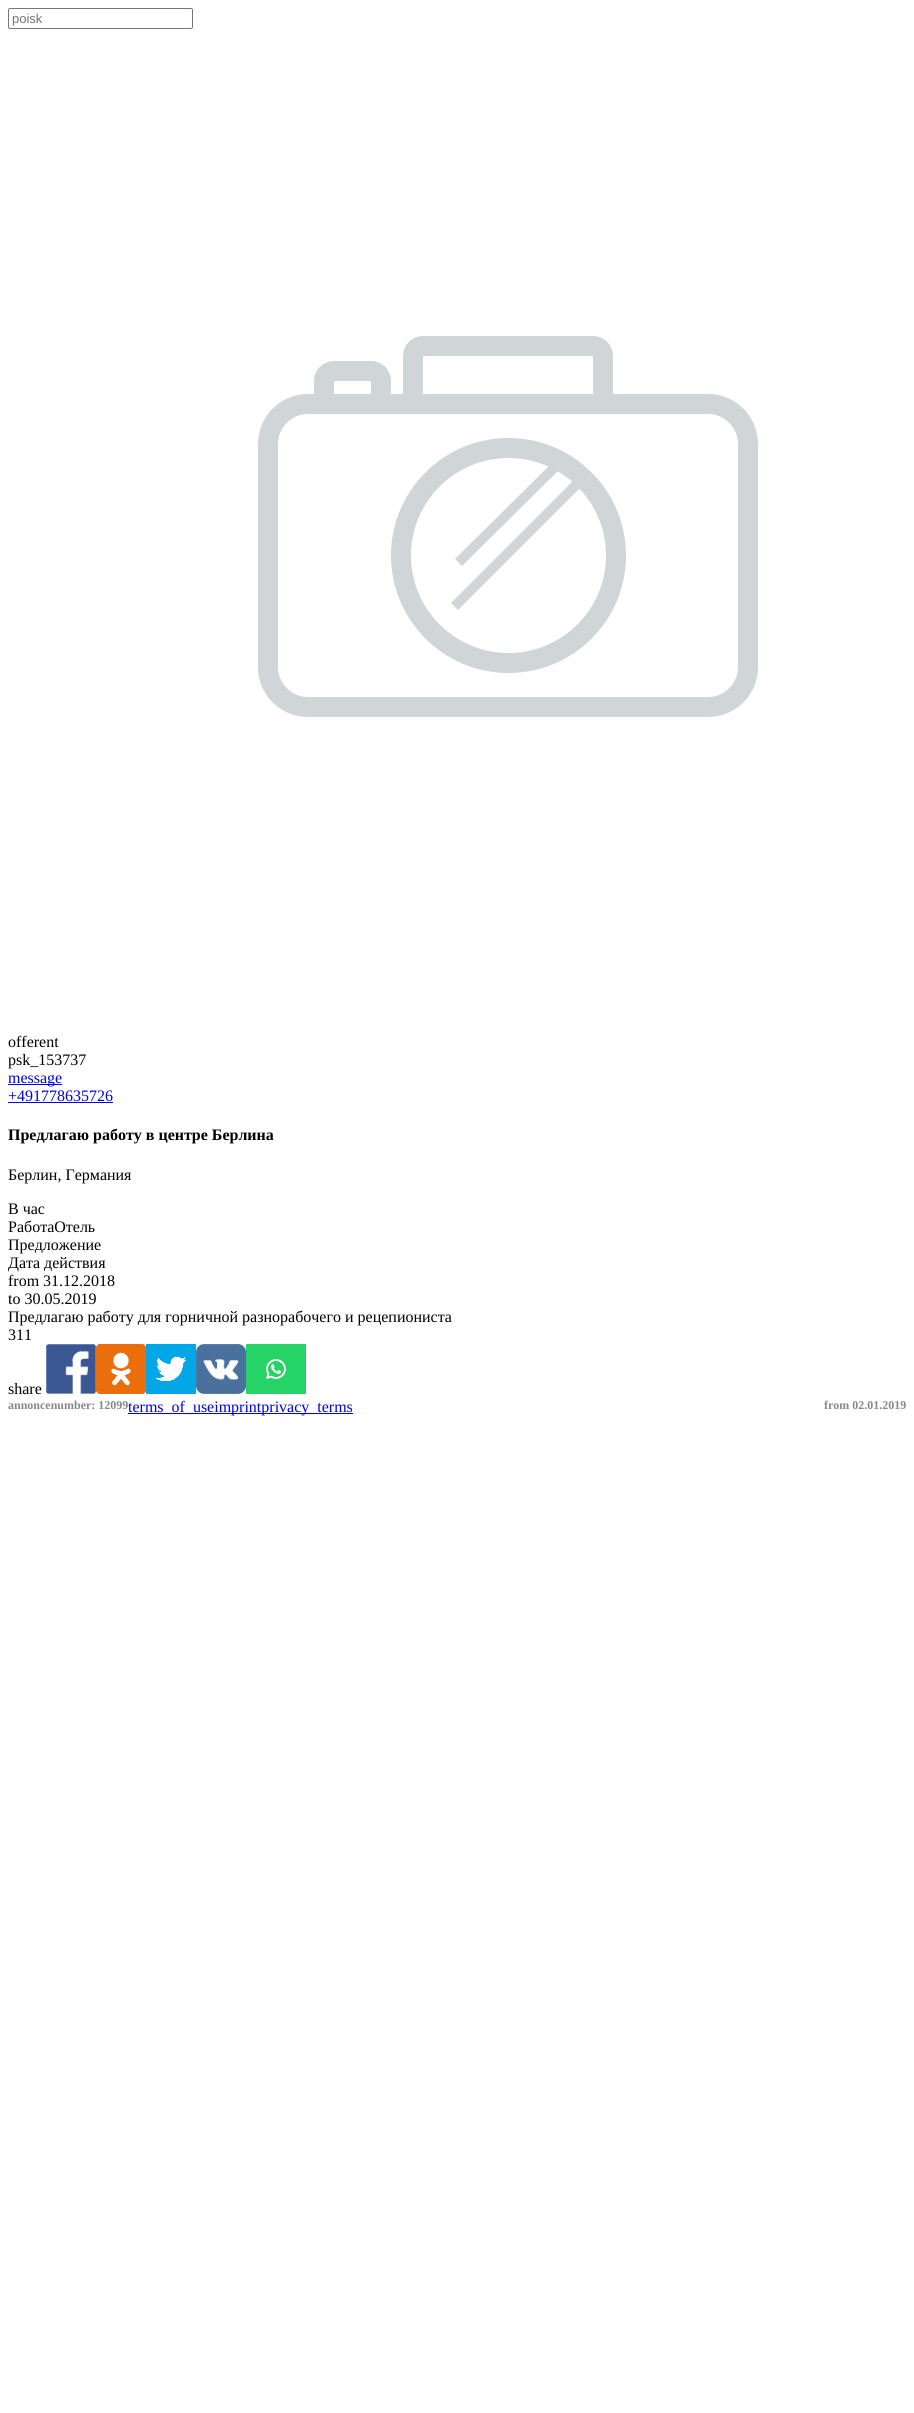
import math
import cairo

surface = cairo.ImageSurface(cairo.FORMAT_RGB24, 914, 2413)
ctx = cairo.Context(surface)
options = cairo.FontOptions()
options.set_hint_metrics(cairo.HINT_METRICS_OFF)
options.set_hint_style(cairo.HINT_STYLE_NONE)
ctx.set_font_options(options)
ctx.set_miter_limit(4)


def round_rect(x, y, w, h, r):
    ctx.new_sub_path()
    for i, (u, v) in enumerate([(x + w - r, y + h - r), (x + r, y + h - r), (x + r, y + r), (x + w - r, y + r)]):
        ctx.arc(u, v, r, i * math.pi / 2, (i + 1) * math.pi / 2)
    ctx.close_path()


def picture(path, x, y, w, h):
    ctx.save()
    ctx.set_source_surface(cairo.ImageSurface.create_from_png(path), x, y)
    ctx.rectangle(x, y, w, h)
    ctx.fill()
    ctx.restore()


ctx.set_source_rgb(1, 1, 1)
ctx.paint()
round_rect(8.5, 8.5, 184, 20, 1.5)
ctx.set_source_rgb(0.463, 0.463, 0.463)
ctx.set_line_width(1)
ctx.stroke()
ctx.select_font_face("Liberation Sans")
ctx.set_font_size(13)
ctx.set_source_rgb(0.459, 0.459, 0.459)
ctx.move_to(12, 23)
ctx.show_text("poisk")
picture("img1.png", 258, 336, 500, 381)
ctx.select_font_face("Liberation Serif")
ctx.set_font_size(16)
ctx.set_source_rgb(0, 0, 0)
ctx.move_to(8, 1047)
ctx.show_text("offerent")
ctx.move_to(8, 1065)
ctx.show_text("psk_153737")
ctx.set_source_rgb(0, 0, 0.933)
ctx.rectangle(8, 1084, 54, 1)
ctx.fill()
ctx.move_to(8, 1083)
ctx.show_text("message")
ctx.move_to(8, 1101)
ctx.show_text("+491778635726")
ctx.rectangle(8, 1102, 105, 1)
ctx.fill()
ctx.select_font_face("Liberation Serif", cairo.FONT_SLANT_NORMAL, cairo.FONT_WEIGHT_BOLD)
ctx.set_source_rgb(0, 0, 0)
ctx.move_to(8, 1140)
ctx.show_text("Предлагаю работу в центре Берлина")
ctx.select_font_face("Liberation Serif")
ctx.move_to(8, 1180)
ctx.show_text("Берлин, Германия")
ctx.move_to(8, 1214)
ctx.show_text("В час")
ctx.move_to(8, 1232)
ctx.show_text("РаботаОтель")
ctx.move_to(8, 1250)
ctx.show_text("Предложение")
ctx.move_to(8, 1268)
ctx.show_text("Дата действия")
ctx.move_to(8, 1286)
ctx.show_text("from 31.12.2018")
ctx.move_to(8, 1304)
ctx.show_text("to 30.05.2019")
ctx.move_to(8, 1322)
ctx.show_text("Предлагаю работу для горничной разнорабочего и рецепиониста")
ctx.move_to(8, 1340)
ctx.show_text("311")
ctx.move_to(8, 1394)
ctx.show_text("share")
picture("img2.png", 46, 1344, 50, 50)
picture("img3.png", 96, 1344, 50, 50)
picture("img4.png", 146, 1344, 50, 50)
picture("img5.png", 196, 1344, 50, 50)
picture("img6.png", 246, 1344, 60, 50)
ctx.select_font_face("Liberation Serif", cairo.FONT_SLANT_NORMAL, cairo.FONT_WEIGHT_BOLD)
ctx.set_font_size(12)
ctx.set_source_rgb(0.533, 0.533, 0.533)
ctx.move_to(8, 1409)
ctx.show_text("annoncenumber: 12099")
ctx.move_to(824, 1409)
ctx.show_text("from 02.01.2019")
ctx.set_source_rgb(0, 0, 0.933)
ctx.rectangle(128, 1413, 225, 1)
ctx.fill()
ctx.select_font_face("Liberation Serif")
ctx.set_font_size(16)
ctx.move_to(128, 1412)
ctx.show_text("terms_of_useimprintprivacy_terms")
surface.write_to_png("page.png")
